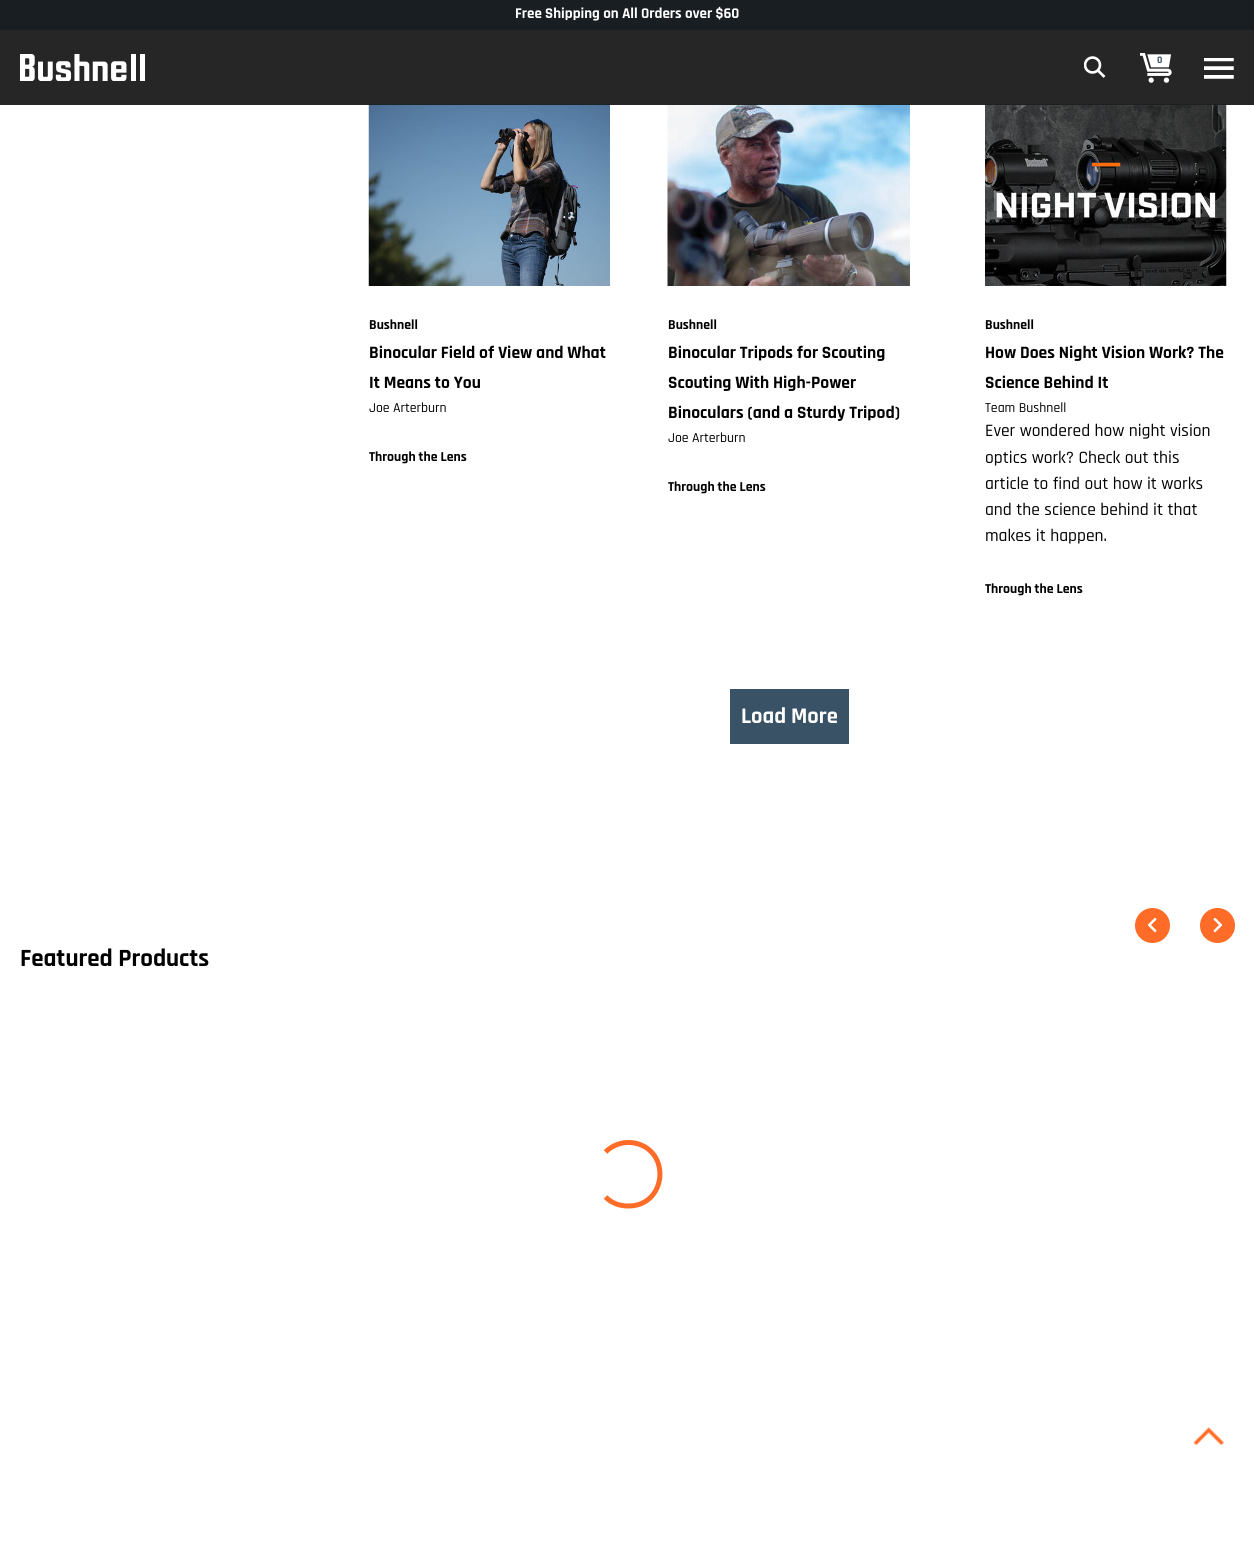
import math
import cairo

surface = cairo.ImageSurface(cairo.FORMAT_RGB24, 1254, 1545)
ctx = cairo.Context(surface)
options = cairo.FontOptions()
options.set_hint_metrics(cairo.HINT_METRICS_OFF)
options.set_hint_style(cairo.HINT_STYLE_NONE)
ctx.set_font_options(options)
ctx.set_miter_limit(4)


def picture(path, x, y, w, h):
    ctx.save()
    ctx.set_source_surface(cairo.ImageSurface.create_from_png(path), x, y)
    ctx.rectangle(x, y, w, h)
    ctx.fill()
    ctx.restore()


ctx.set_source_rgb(1, 1, 1)
ctx.paint()
ctx.set_source_rgb(0.098, 0.118, 0.137)
ctx.rectangle(0, 0, 1254, 30)
ctx.fill()
ctx.select_font_face("Rajdhani", cairo.FONT_SLANT_NORMAL, cairo.FONT_WEIGHT_BOLD)
ctx.set_font_size(15)
ctx.set_source_rgb(1, 1, 1)
ctx.move_to(515, 18)
ctx.show_text("Free Shipping on All Orders over $60")
picture("img5.png", 368, 104, 242, 182)
picture("img6.png", 667, 104, 243, 182)
picture("img7.png", 985, 104, 242, 182)
ctx.set_source_rgba(0, 0, 0, 0.85)
ctx.rectangle(0, 30, 1254, 75)
ctx.fill()
picture("img1.png", 20, 54, 125, 27)
picture("img2.png", 1084, 56, 22, 22)
picture("img3.png", 1140, 53, 32, 30)
ctx.set_font_size(10)
ctx.set_source_rgb(0.227, 0.322, 0.4)
ctx.move_to(1157, 63)
ctx.show_text("0")
picture("img4.png", 1204, 58, 30, 21)
ctx.set_font_size(13.75)
ctx.set_source_rgb(0, 0, 0)
ctx.move_to(369, 329)
ctx.show_text("Bushnell")
ctx.set_font_size(17.5)
ctx.move_to(369, 358)
ctx.show_text("Binocular Field of View and What")
ctx.move_to(369, 388)
ctx.show_text("It Means to You")
ctx.select_font_face("Rajdhani Medium")
ctx.set_font_size(13.75)
ctx.move_to(369, 412)
ctx.show_text("Joe Arterburn")
ctx.select_font_face("Rajdhani", cairo.FONT_SLANT_NORMAL, cairo.FONT_WEIGHT_BOLD)
ctx.move_to(369, 461)
ctx.show_text("Through the Lens")
ctx.move_to(668, 329)
ctx.show_text("Bushnell")
ctx.set_font_size(17.5)
ctx.move_to(668, 358)
ctx.show_text("Binocular Tripods for Scouting")
ctx.move_to(668, 388)
ctx.show_text("Scouting With High-Power")
ctx.move_to(668, 418)
ctx.show_text("Binoculars (and a Sturdy Tripod)")
ctx.select_font_face("Rajdhani Medium")
ctx.set_font_size(13.75)
ctx.move_to(668, 442)
ctx.show_text("Joe Arterburn")
ctx.select_font_face("Rajdhani", cairo.FONT_SLANT_NORMAL, cairo.FONT_WEIGHT_BOLD)
ctx.move_to(668, 491)
ctx.show_text("Through the Lens")
ctx.move_to(985, 329)
ctx.show_text("Bushnell")
ctx.set_font_size(17.5)
ctx.move_to(985, 358)
ctx.show_text("How Does Night Vision Work? The")
ctx.move_to(985, 388)
ctx.show_text("Science Behind It")
ctx.select_font_face("Rajdhani Medium")
ctx.set_font_size(13.75)
ctx.move_to(985, 412)
ctx.show_text("Team Bushnell")
ctx.set_font_size(17.5)
ctx.move_to(985, 436)
ctx.show_text("Ever wondered how night vision")
ctx.move_to(985, 463)
ctx.show_text("optics work? Check out this")
ctx.move_to(985, 489)
ctx.show_text("article to find out how it works")
ctx.move_to(985, 515)
ctx.show_text("and the science behind it that")
ctx.move_to(985, 541)
ctx.show_text("makes it happen.")
ctx.select_font_face("Rajdhani", cairo.FONT_SLANT_NORMAL, cairo.FONT_WEIGHT_BOLD)
ctx.set_font_size(13.75)
ctx.move_to(985, 593)
ctx.show_text("Through the Lens")
ctx.set_source_rgb(0.227, 0.322, 0.4)
ctx.rectangle(730, 689, 119, 55)
ctx.fill()
ctx.set_font_size(22.5)
ctx.set_source_rgb(1, 1, 1)
ctx.move_to(741, 723)
ctx.show_text("Load More")
ctx.set_source_rgb(1, 0.424, 0.153)
ctx.new_path()
ctx.arc(1152.5, 925.5, 17.5, 0, 2 * math.pi)
ctx.fill()
picture("img8.png", 1148, 918, 9, 15)
ctx.arc(1217.5, 925.5, 17.5, 0, 2 * math.pi)
ctx.fill()
picture("img9.png", 1213, 918, 10, 15)
ctx.set_font_size(25)
ctx.set_source_rgb(0, 0, 0)
ctx.move_to(20, 966)
ctx.show_text("Featured Products")
ctx.new_path()
ctx.move_to(605.5, 1152)
ctx.curve_to(613, 1144.5, 624, 1141, 634.5, 1143)
ctx.curve_to(672, 1150.5, 666.5, 1206.5, 628, 1206)
ctx.curve_to(619.5, 1206, 611.5, 1203, 605.5, 1197)
ctx.set_source_rgb(1, 0.424, 0.153)
ctx.set_line_width(5)
ctx.stroke()
picture("img10.png", 1193, 1427, 31, 18)
surface.write_to_png("page.png")
